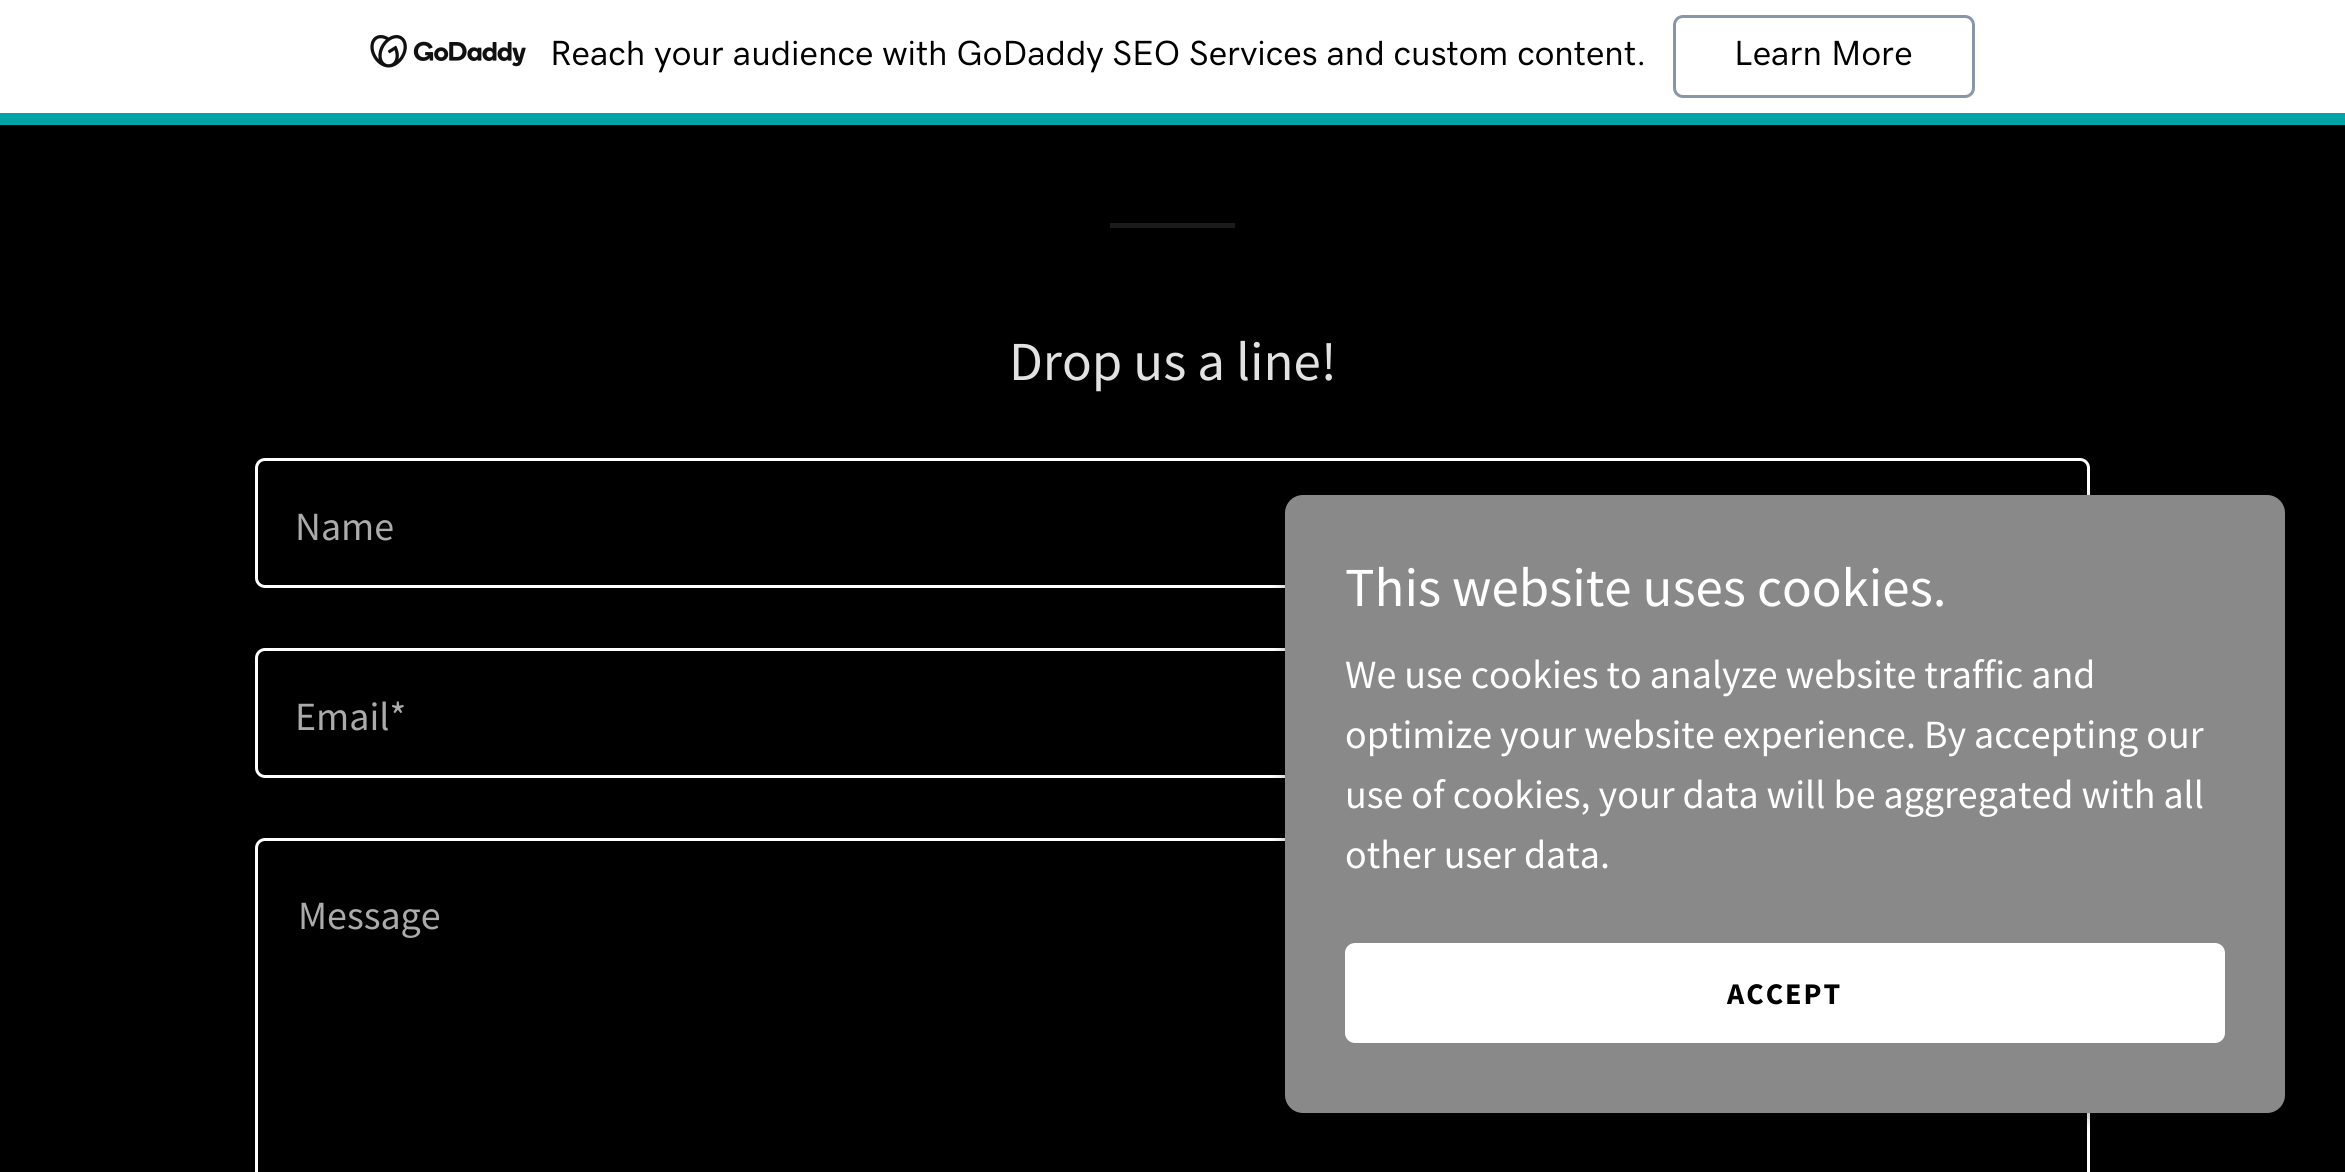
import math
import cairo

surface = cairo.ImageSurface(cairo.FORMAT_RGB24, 2345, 1172)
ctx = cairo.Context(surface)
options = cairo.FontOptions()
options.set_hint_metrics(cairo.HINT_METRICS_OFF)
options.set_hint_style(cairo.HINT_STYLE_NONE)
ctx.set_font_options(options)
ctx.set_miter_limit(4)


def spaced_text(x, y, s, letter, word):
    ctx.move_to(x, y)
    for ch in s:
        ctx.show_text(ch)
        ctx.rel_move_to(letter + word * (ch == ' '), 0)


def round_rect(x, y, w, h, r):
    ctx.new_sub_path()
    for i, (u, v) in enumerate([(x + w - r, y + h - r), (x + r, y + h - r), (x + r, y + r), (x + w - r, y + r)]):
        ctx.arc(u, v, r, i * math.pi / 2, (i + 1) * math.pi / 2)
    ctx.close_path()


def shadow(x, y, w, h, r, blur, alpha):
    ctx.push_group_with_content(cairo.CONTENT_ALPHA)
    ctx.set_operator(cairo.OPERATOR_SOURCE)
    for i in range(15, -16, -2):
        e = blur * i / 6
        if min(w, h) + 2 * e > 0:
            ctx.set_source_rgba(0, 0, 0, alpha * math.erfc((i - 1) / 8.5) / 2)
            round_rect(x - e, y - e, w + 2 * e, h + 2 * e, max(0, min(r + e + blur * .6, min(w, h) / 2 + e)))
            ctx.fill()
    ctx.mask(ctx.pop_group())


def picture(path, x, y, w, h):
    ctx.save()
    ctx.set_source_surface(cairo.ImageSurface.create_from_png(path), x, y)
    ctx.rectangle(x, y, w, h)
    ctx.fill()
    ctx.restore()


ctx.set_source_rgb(0, 0, 0)
ctx.paint()
ctx.set_source_rgb(1, 1, 1)
ctx.rectangle(0, 0, 2345, 113)
ctx.fill()
ctx.set_source_rgb(0, 0.643, 0.651)
ctx.rectangle(0, 113, 2345, 12)
ctx.fill()
picture("img1.png", 370, 35, 156, 33)
ctx.select_font_face("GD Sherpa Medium")
ctx.set_font_size(35)
ctx.set_source_rgb(0, 0, 0)
ctx.move_to(550, 65)
ctx.show_text("Reach your audience with GoDaddy SEO Services and custom content.")
round_rect(1674.5, 16.5, 299, 80, 8.5)
ctx.set_source_rgb(0.537, 0.584, 0.663)
ctx.set_line_width(3)
ctx.stroke()
ctx.set_source_rgb(0, 0, 0)
ctx.move_to(1734, 65)
ctx.show_text("Learn More")
ctx.set_source_rgb(0.106, 0.106, 0.106)
ctx.rectangle(1110, 223, 125, 5)
ctx.fill()
ctx.select_font_face("Source Sans Pro")
ctx.set_font_size(55)
ctx.set_source_rgb(0.886, 0.886, 0.886)
ctx.move_to(1009, 380)
ctx.show_text("Drop us a line!")
round_rect(256.5, 459.5, 1832, 127, 8.5)
ctx.set_source_rgb(1, 1, 1)
ctx.stroke()
ctx.set_font_size(40)
ctx.set_source_rgb(0.671, 0.671, 0.671)
ctx.move_to(295, 540)
ctx.show_text("Name")
round_rect(256.5, 649.5, 1832, 127, 8.5)
ctx.set_source_rgb(1, 1, 1)
ctx.stroke()
ctx.set_source_rgb(0.671, 0.671, 0.671)
ctx.move_to(295, 730)
ctx.show_text("Email*")
round_rect(256.5, 839.5, 1832, 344, 8.5)
ctx.set_source_rgb(1, 1, 1)
ctx.stroke()
ctx.set_source_rgb(0.671, 0.671, 0.671)
ctx.move_to(298, 929)
ctx.show_text("Message")
ctx.set_source_rgb(0, 0, 0)
shadow(1285, 500, 1000, 618, 18, 7.5, 0.3)
ctx.set_source_rgb(0.537, 0.537, 0.537)
round_rect(1285, 495, 1000, 618, 18)
ctx.fill()
ctx.set_font_size(55)
ctx.set_source_rgb(1, 1, 1)
ctx.move_to(1345, 606)
ctx.show_text("This website uses cookies.")
ctx.set_font_size(40)
ctx.move_to(1345, 688)
ctx.show_text("We use cookies to analyze website traffic and")
ctx.move_to(1345, 748)
ctx.show_text("optimize your website experience. By accepting our")
ctx.move_to(1345, 808)
ctx.show_text("use of cookies, your data will be aggregated with all")
ctx.move_to(1345, 868)
ctx.show_text("other user data.")
round_rect(1345, 943, 880, 100, 10)
ctx.fill()
ctx.select_font_face("Source Sans Pro", cairo.FONT_SLANT_NORMAL, cairo.FONT_WEIGHT_BOLD)
ctx.set_font_size(30)
ctx.set_source_rgb(0, 0, 0)
spaced_text(1727, 1004, "ACCEPT", 2, 0)
surface.write_to_png("page.png")
